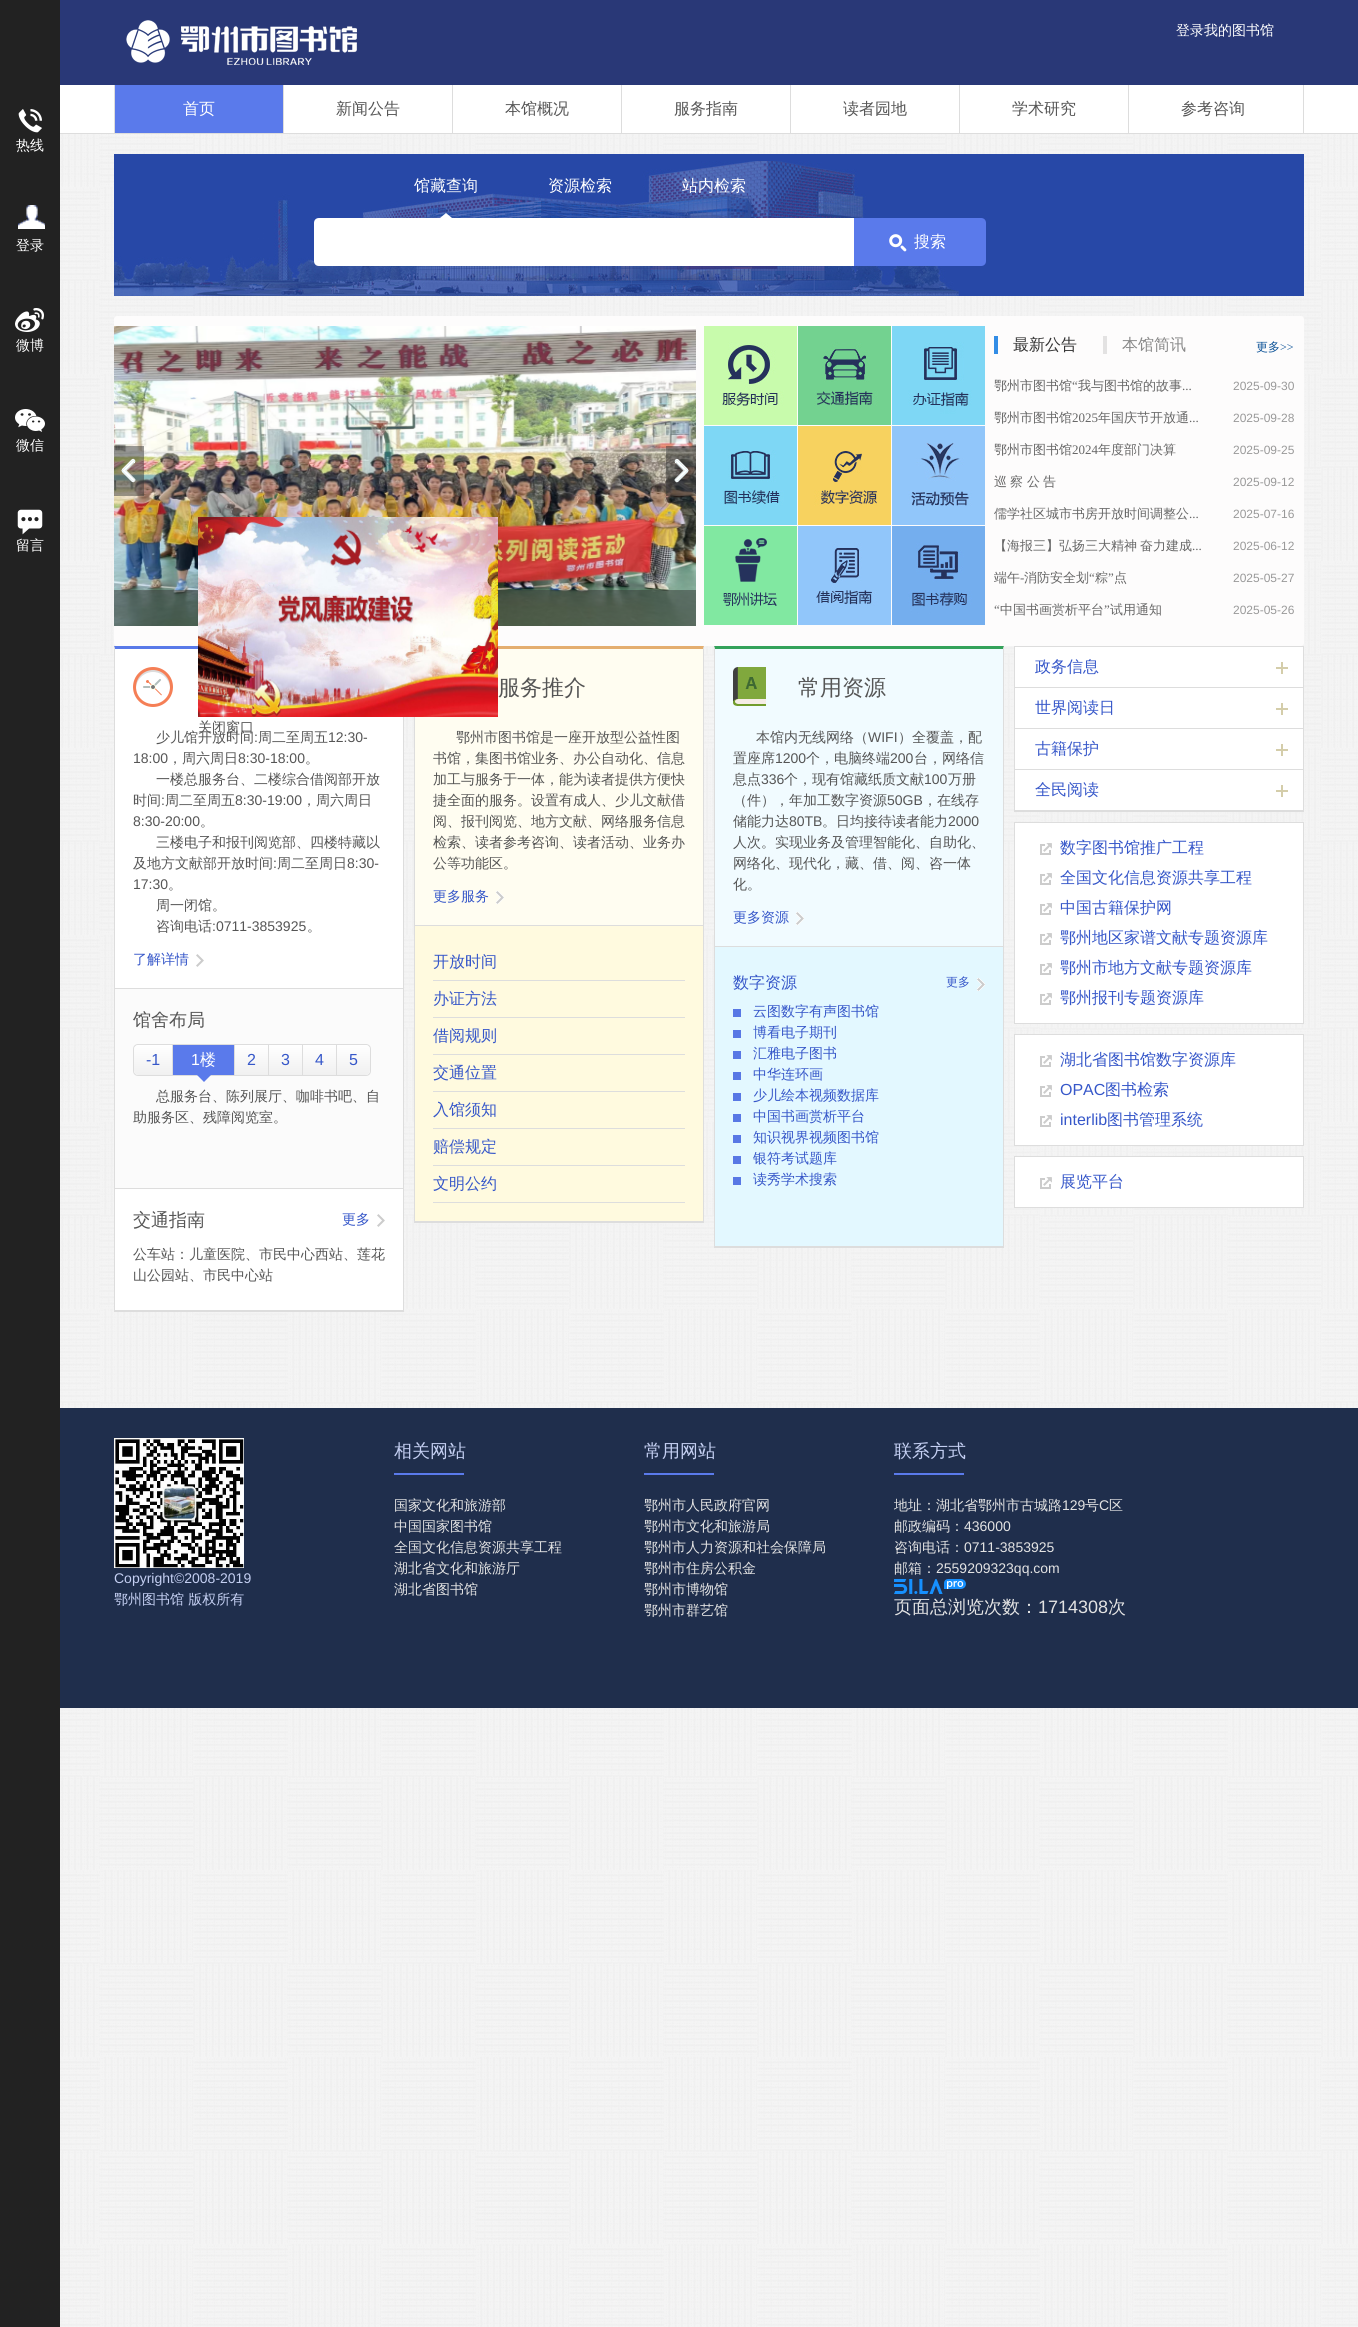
import math
import cairo

surface = cairo.ImageSurface(cairo.FORMAT_RGB24, 1358, 2327)
ctx = cairo.Context(surface)
options = cairo.FontOptions()
options.set_hint_metrics(cairo.HINT_METRICS_OFF)
options.set_hint_style(cairo.HINT_STYLE_NONE)
ctx.set_font_options(options)
ctx.set_miter_limit(4)


def spaced_text(x, y, s, letter, word):
    ctx.move_to(x, y)
    for ch in s:
        ctx.show_text(ch)
        ctx.rel_move_to(letter + word * (ch == ' '), 0)


def round_rect(x, y, w, h, r):
    ctx.new_sub_path()
    for i, (u, v) in enumerate([(x + w - r, y + h - r), (x + r, y + h - r), (x + r, y + r), (x + w - r, y + r)]):
        ctx.arc(u, v, r, i * math.pi / 2, (i + 1) * math.pi / 2)
    ctx.close_path()


def picture(path, x, y, w, h):
    ctx.save()
    ctx.set_source_surface(cairo.ImageSurface.create_from_png(path), x, y)
    ctx.rectangle(x, y, w, h)
    ctx.fill()
    ctx.restore()


ctx.set_source_rgb(1, 1, 1)
ctx.paint()
picture("img1.png", 60, 134, 1298, 2193)
ctx.set_source_rgb(0.161, 0.22, 0.467)
ctx.rectangle(60, 0, 1298, 85)
ctx.fill()
picture("img2.png", 126, 20, 231, 45)
ctx.select_font_face("WenQuanYi Zen Hei Medium")
ctx.set_font_size(14)
ctx.set_source_rgb(1, 1, 1)
ctx.move_to(1176, 35)
ctx.show_text("登录我的图书馆")
ctx.set_source_rgb(0.867, 0.867, 0.867)
ctx.rectangle(60, 133, 1298, 1)
ctx.fill()
ctx.rectangle(1303, 85, 1, 48)
ctx.fill()
ctx.rectangle(114, 85, 1, 48)
ctx.fill()
ctx.set_source_rgb(0.353, 0.478, 0.918)
ctx.rectangle(115, 85, 168, 48)
ctx.fill()
ctx.set_font_size(16)
ctx.set_source_rgb(1, 1, 1)
ctx.move_to(183, 114)
ctx.show_text("首页")
ctx.set_source_rgb(0.867, 0.867, 0.867)
ctx.rectangle(283, 85, 1, 48)
ctx.fill()
ctx.set_source_rgb(0.333, 0.333, 0.333)
ctx.move_to(336, 114)
ctx.show_text("新闻公告")
ctx.set_source_rgb(0.867, 0.867, 0.867)
ctx.rectangle(452, 85, 1, 48)
ctx.fill()
ctx.set_source_rgb(0.333, 0.333, 0.333)
ctx.move_to(505, 114)
ctx.show_text("本馆概况")
ctx.set_source_rgb(0.867, 0.867, 0.867)
ctx.rectangle(621, 85, 1, 48)
ctx.fill()
ctx.set_source_rgb(0.333, 0.333, 0.333)
ctx.move_to(674, 114)
ctx.show_text("服务指南")
ctx.set_source_rgb(0.867, 0.867, 0.867)
ctx.rectangle(790, 85, 1, 48)
ctx.fill()
ctx.set_source_rgb(0.333, 0.333, 0.333)
ctx.move_to(843, 114)
ctx.show_text("读者园地")
ctx.set_source_rgb(0.867, 0.867, 0.867)
ctx.rectangle(959, 85, 1, 48)
ctx.fill()
ctx.set_source_rgb(0.333, 0.333, 0.333)
ctx.move_to(1012, 114)
ctx.show_text("学术研究")
ctx.set_source_rgb(0.867, 0.867, 0.867)
ctx.rectangle(1128, 85, 1, 48)
ctx.fill()
ctx.set_source_rgb(0.333, 0.333, 0.333)
ctx.move_to(1181, 114)
ctx.show_text("参考咨询")
ctx.set_source_rgb(0.133, 0.133, 0.133)
ctx.rectangle(0, 0, 60, 2327)
ctx.fill()
picture("img3.png", 18, 109, 24, 24)
ctx.set_font_size(14)
ctx.set_source_rgb(1, 1, 1)
ctx.move_to(16, 150)
ctx.show_text("热线")
picture("img4.png", 18, 205, 27, 24)
ctx.move_to(16, 250)
ctx.show_text("登录")
picture("img5.png", 15, 308, 29, 24)
ctx.move_to(16, 350)
ctx.show_text("微博")
picture("img6.png", 15, 409, 30, 23)
ctx.move_to(16, 450)
ctx.show_text("微信")
picture("img7.png", 17, 509, 26, 26)
ctx.move_to(16, 550)
ctx.show_text("留言")
ctx.set_source_rgb(0.153, 0.282, 0.655)
ctx.rectangle(114, 154, 1190, 142)
ctx.fill()
picture("img8.png", 114, 161, 845, 135)
picture("img9.png", 440, 213, 12, 5)
ctx.set_font_size(16)
ctx.set_source_rgb(1, 1, 1)
ctx.move_to(414, 191)
ctx.show_text("馆藏查询")
ctx.move_to(548, 191)
ctx.show_text("资源检索")
ctx.move_to(682, 191)
ctx.show_text("站内检索")
ctx.new_path()
ctx.move_to(319, 218)
ctx.line_to(854, 218)
ctx.line_to(854, 266)
ctx.line_to(319, 266)
ctx.curve_to(316, 266, 314, 264, 314, 261)
ctx.line_to(314, 223)
ctx.curve_to(314, 220, 316, 218, 319, 218)
ctx.close_path()
ctx.fill()
ctx.set_source_rgb(0.353, 0.478, 0.918)
ctx.new_path()
ctx.move_to(854, 218)
ctx.line_to(981, 218)
ctx.curve_to(984, 218, 986, 220, 986, 223)
ctx.line_to(986, 261)
ctx.curve_to(986, 264, 984, 266, 981, 266)
ctx.line_to(854, 266)
ctx.close_path()
ctx.fill()
picture("img10.png", 889, 234, 18, 18)
ctx.set_source_rgb(1, 1, 1)
ctx.move_to(914, 247)
ctx.show_text("搜索")
ctx.set_source_rgb(0.992, 0.988, 0.988)
round_rect(114, 316, 1190, 330, 3)
ctx.fill()
picture("img11.png", 114, 326, 582, 300)
ctx.set_source_rgba(0.204, 0.204, 0.204, 0.5)
ctx.rectangle(114, 590, 582, 36)
ctx.fill()
picture("img12.png", 114, 446, 30, 50)
picture("img13.png", 666, 446, 30, 50)
picture("img14.png", 704, 326, 93, 99)
picture("img15.png", 798, 326, 93, 99)
picture("img16.png", 892, 326, 93, 99)
picture("img17.png", 704, 426, 93, 99)
picture("img18.png", 798, 426, 93, 99)
picture("img19.png", 892, 426, 93, 99)
picture("img20.png", 704, 526, 93, 99)
picture("img21.png", 798, 526, 93, 99)
picture("img22.png", 892, 526, 93, 99)
ctx.set_source_rgb(0.2, 0.553, 0.902)
ctx.rectangle(994, 336, 4, 18)
ctx.fill()
ctx.set_source_rgb(0.2, 0.2, 0.2)
ctx.move_to(1013, 350)
ctx.show_text("最新公告")
ctx.set_source_rgb(0.89, 0.886, 0.886)
ctx.rectangle(1103, 336, 4, 18)
ctx.fill()
ctx.set_source_rgb(0.533, 0.533, 0.533)
ctx.move_to(1122, 350)
ctx.show_text("本馆简讯")
ctx.set_font_size(12)
ctx.set_source_rgb(0.051, 0.325, 0.596)
ctx.move_to(1256, 351)
ctx.show_text("更多")
ctx.select_font_face("Liberation Serif")
ctx.move_to(1280, 351)
ctx.show_text(">>")
ctx.select_font_face("WenQuanYi Zen Hei Medium")
ctx.set_font_size(13)
ctx.set_source_rgb(0.4, 0.4, 0.4)
ctx.move_to(994, 390)
ctx.show_text("鄂州市图书馆")
ctx.select_font_face("Liberation Serif")
ctx.move_to(1072, 390)
ctx.show_text("“")
ctx.select_font_face("WenQuanYi Zen Hei Medium")
ctx.move_to(1078, 390)
ctx.show_text("我与图书馆的故事")
ctx.select_font_face("Liberation Serif")
ctx.move_to(1182, 390)
ctx.show_text("...")
ctx.select_font_face("Liberation Sans")
ctx.set_font_size(12)
ctx.set_source_rgb(0.6, 0.6, 0.6)
ctx.move_to(1233, 390)
ctx.show_text("2025-09-30")
ctx.select_font_face("WenQuanYi Zen Hei Medium")
ctx.set_font_size(13)
ctx.set_source_rgb(0.4, 0.4, 0.4)
ctx.move_to(994, 422)
ctx.show_text("鄂州市图书馆")
ctx.select_font_face("Liberation Serif")
ctx.move_to(1072, 422)
ctx.show_text("2025")
ctx.select_font_face("WenQuanYi Zen Hei Medium")
ctx.move_to(1098, 422)
ctx.show_text("年国庆节开放通")
ctx.select_font_face("Liberation Serif")
ctx.move_to(1189, 422)
ctx.show_text("...")
ctx.select_font_face("Liberation Sans")
ctx.set_font_size(12)
ctx.set_source_rgb(0.6, 0.6, 0.6)
ctx.move_to(1233, 422)
ctx.show_text("2025-09-28")
ctx.select_font_face("WenQuanYi Zen Hei Medium")
ctx.set_font_size(13)
ctx.set_source_rgb(0.4, 0.4, 0.4)
ctx.move_to(994, 454)
ctx.show_text("鄂州市图书馆")
ctx.select_font_face("Liberation Serif")
ctx.move_to(1072, 454)
ctx.show_text("2024")
ctx.select_font_face("WenQuanYi Zen Hei Medium")
ctx.move_to(1098, 454)
ctx.show_text("年度部门决算")
ctx.select_font_face("Liberation Sans")
ctx.set_font_size(12)
ctx.set_source_rgb(0.6, 0.6, 0.6)
ctx.move_to(1233, 454)
ctx.show_text("2025-09-25")
ctx.select_font_face("WenQuanYi Zen Hei Medium")
ctx.set_font_size(13)
ctx.set_source_rgb(0.4, 0.4, 0.4)
ctx.move_to(994, 486)
ctx.show_text("巡")
ctx.move_to(1010, 486)
ctx.show_text("察")
ctx.move_to(1027, 486)
ctx.show_text("公")
ctx.move_to(1043, 486)
ctx.show_text("告")
ctx.select_font_face("Liberation Sans")
ctx.set_font_size(12)
ctx.set_source_rgb(0.6, 0.6, 0.6)
ctx.move_to(1233, 486)
ctx.show_text("2025-09-12")
ctx.select_font_face("WenQuanYi Zen Hei Medium")
ctx.set_font_size(13)
ctx.set_source_rgb(0.4, 0.4, 0.4)
ctx.move_to(994, 518)
ctx.show_text("儒学社区城市书房开放时间调整公")
ctx.select_font_face("Liberation Serif")
ctx.move_to(1189, 518)
ctx.show_text("...")
ctx.select_font_face("Liberation Sans")
ctx.set_font_size(12)
ctx.set_source_rgb(0.6, 0.6, 0.6)
ctx.move_to(1233, 518)
ctx.show_text("2025-07-16")
ctx.select_font_face("WenQuanYi Zen Hei Medium")
ctx.set_font_size(13)
ctx.set_source_rgb(0.4, 0.4, 0.4)
spaced_text(994, 550, "【海报三】弘扬三大精神 奋力建成", 0, -1)
ctx.select_font_face("Liberation Serif")
ctx.move_to(1192, 550)
ctx.show_text("...")
ctx.select_font_face("Liberation Sans")
ctx.set_font_size(12)
ctx.set_source_rgb(0.6, 0.6, 0.6)
ctx.move_to(1233, 550)
ctx.show_text("2025-06-12")
ctx.select_font_face("WenQuanYi Zen Hei Medium")
ctx.set_font_size(13)
ctx.set_source_rgb(0.4, 0.4, 0.4)
ctx.move_to(994, 582)
ctx.show_text("端午")
ctx.select_font_face("Liberation Serif")
ctx.move_to(1020, 582)
ctx.show_text("-")
ctx.select_font_face("WenQuanYi Zen Hei Medium")
ctx.move_to(1024, 582)
ctx.show_text("消防安全划")
ctx.select_font_face("Liberation Serif")
ctx.move_to(1089, 582)
ctx.show_text("“")
ctx.select_font_face("WenQuanYi Zen Hei Medium")
ctx.move_to(1095, 582)
ctx.show_text("粽")
ctx.select_font_face("Liberation Serif")
ctx.move_to(1108, 582)
ctx.show_text("”")
ctx.select_font_face("WenQuanYi Zen Hei Medium")
ctx.move_to(1114, 582)
ctx.show_text("点")
ctx.select_font_face("Liberation Sans")
ctx.set_font_size(12)
ctx.set_source_rgb(0.6, 0.6, 0.6)
ctx.move_to(1233, 582)
ctx.show_text("2025-05-27")
ctx.select_font_face("Liberation Serif")
ctx.set_font_size(13)
ctx.set_source_rgb(0.4, 0.4, 0.4)
ctx.move_to(994, 614)
ctx.show_text("“")
ctx.select_font_face("WenQuanYi Zen Hei Medium")
ctx.move_to(1000, 614)
ctx.show_text("中国书画赏析平台")
ctx.select_font_face("Liberation Serif")
ctx.move_to(1104, 614)
ctx.show_text("”")
ctx.select_font_face("WenQuanYi Zen Hei Medium")
ctx.move_to(1110, 614)
ctx.show_text("试用通知")
ctx.select_font_face("Liberation Sans")
ctx.set_font_size(12)
ctx.set_source_rgb(0.6, 0.6, 0.6)
ctx.move_to(1233, 614)
ctx.show_text("2025-05-26")
ctx.set_source_rgb(1, 1, 1)
ctx.rectangle(115, 649, 288, 661)
ctx.fill()
ctx.set_source_rgb(0.349, 0.475, 0.91)
ctx.new_path()
ctx.move_to(114, 646)
ctx.line_to(404, 646)
ctx.line_to(403, 649)
ctx.line_to(115, 649)
ctx.close_path()
ctx.fill()
ctx.set_source_rgb(0.867, 0.867, 0.867)
ctx.new_path()
ctx.move_to(404, 646)
ctx.line_to(404, 1312)
ctx.line_to(403, 1311)
ctx.line_to(403, 649)
ctx.close_path()
ctx.fill()
ctx.rectangle(114, 1311, 290, 1)
ctx.fill()
ctx.new_path()
ctx.move_to(114, 1312)
ctx.line_to(114, 646)
ctx.line_to(115, 649)
ctx.line_to(115, 1311)
ctx.close_path()
ctx.fill()
ctx.rectangle(115, 988, 288, 1)
ctx.fill()
picture("img23.png", 133, 667, 40, 40)
ctx.select_font_face("WenQuanYi Zen Hei Medium")
ctx.set_font_size(14)
ctx.set_source_rgb(0.333, 0.333, 0.333)
ctx.move_to(156, 742)
ctx.show_text("少儿馆开放时间")
ctx.select_font_face("Liberation Sans")
ctx.move_to(254, 742)
ctx.show_text(":")
ctx.select_font_face("WenQuanYi Zen Hei Medium")
ctx.move_to(258, 742)
ctx.show_text("周二至周五")
ctx.select_font_face("Liberation Sans")
ctx.move_to(328, 742)
ctx.show_text("12:30-")
ctx.move_to(133, 763)
ctx.show_text("18:00")
ctx.select_font_face("WenQuanYi Zen Hei Medium")
ctx.move_to(168, 763)
ctx.show_text("，周六周日")
ctx.select_font_face("Liberation Sans")
ctx.move_to(238, 763)
ctx.show_text("8:30-18:00")
ctx.select_font_face("WenQuanYi Zen Hei Medium")
ctx.move_to(305, 763)
ctx.show_text("。")
ctx.move_to(156, 784)
ctx.show_text("一楼总服务台、二楼综合借阅部开放")
ctx.move_to(133, 805)
ctx.show_text("时间")
ctx.select_font_face("Liberation Sans")
ctx.move_to(161, 805)
ctx.show_text(":")
ctx.select_font_face("WenQuanYi Zen Hei Medium")
ctx.move_to(165, 805)
ctx.show_text("周二至周五")
ctx.select_font_face("Liberation Sans")
ctx.move_to(235, 805)
ctx.show_text("8:30-19:00")
ctx.select_font_face("WenQuanYi Zen Hei Medium")
ctx.move_to(302, 805)
ctx.show_text("，周六周日")
ctx.select_font_face("Liberation Sans")
ctx.move_to(133, 826)
ctx.show_text("8:30-20:00")
ctx.select_font_face("WenQuanYi Zen Hei Medium")
ctx.move_to(200, 826)
ctx.show_text("。")
ctx.move_to(156, 847)
ctx.show_text("三楼电子和报刊阅览部、四楼特藏以")
ctx.move_to(133, 868)
ctx.show_text("及地方文献部开放时间")
ctx.select_font_face("Liberation Sans")
ctx.move_to(273, 868)
ctx.show_text(":")
ctx.select_font_face("WenQuanYi Zen Hei Medium")
ctx.move_to(277, 868)
ctx.show_text("周二至周日")
ctx.select_font_face("Liberation Sans")
ctx.move_to(347, 868)
ctx.show_text("8:30-")
ctx.move_to(133, 889)
ctx.show_text("17:30")
ctx.select_font_face("WenQuanYi Zen Hei Medium")
ctx.move_to(168, 889)
ctx.show_text("。")
ctx.move_to(156, 910)
ctx.show_text("周一闭馆。")
ctx.move_to(156, 931)
ctx.show_text("咨询电话")
ctx.select_font_face("Liberation Sans")
ctx.move_to(212, 931)
ctx.show_text(":0711-3853925")
ctx.select_font_face("WenQuanYi Zen Hei Medium")
ctx.move_to(307, 931)
ctx.show_text("。")
picture("img24.png", 196, 954, 8, 13)
ctx.set_source_rgb(0.212, 0.341, 0.788)
ctx.move_to(133, 964)
ctx.show_text("了解详情")
ctx.set_source_rgb(0.984, 0.984, 0.984)
ctx.rectangle(115, 989, 288, 199)
ctx.fill()
ctx.set_source_rgb(0.867, 0.867, 0.867)
ctx.rectangle(115, 1188, 288, 1)
ctx.fill()
ctx.set_font_size(18)
ctx.set_source_rgb(0.333, 0.333, 0.333)
ctx.move_to(133, 1026)
ctx.show_text("馆舍布局")
round_rect(133.5, 1044.5, 237, 31, 4.5)
ctx.set_source_rgb(0.867, 0.867, 0.867)
ctx.set_line_width(1)
ctx.stroke()
gradient = cairo.LinearGradient(153, 1045, 153, 1075)
gradient.add_color_stop_rgba(0, 1, 1, 1, 1)
gradient.add_color_stop_rgba(1, 0.941, 0.941, 0.941, 1)
ctx.set_source(gradient)
ctx.new_path()
ctx.move_to(139, 1045)
ctx.line_to(172, 1045)
ctx.line_to(172, 1075)
ctx.line_to(139, 1075)
ctx.curve_to(136, 1075, 134, 1073, 134, 1070)
ctx.line_to(134, 1050)
ctx.curve_to(134, 1047, 136, 1045, 139, 1045)
ctx.close_path()
ctx.fill()
ctx.select_font_face("Liberation Sans")
ctx.set_font_size(16)
ctx.set_source_rgb(0.212, 0.341, 0.788)
ctx.move_to(146, 1065)
ctx.show_text("-1")
ctx.set_source_rgb(0.353, 0.478, 0.918)
ctx.rectangle(173, 1045, 61, 30)
ctx.fill()
ctx.set_source_rgb(0.867, 0.867, 0.867)
ctx.rectangle(172, 1045, 1, 30)
ctx.fill()
ctx.set_source_rgb(1, 1, 1)
ctx.move_to(191, 1065)
ctx.show_text("1")
ctx.select_font_face("WenQuanYi Zen Hei Medium")
ctx.move_to(200, 1065)
ctx.show_text("楼")
ctx.set_source_rgb(0.353, 0.478, 0.918)
ctx.new_path()
ctx.move_to(197, 1075)
ctx.line_to(211, 1075)
ctx.line_to(204, 1082)
ctx.close_path()
ctx.fill()
gradient = cairo.LinearGradient(252, 1045, 252, 1075)
gradient.add_color_stop_rgba(0, 1, 1, 1, 1)
gradient.add_color_stop_rgba(1, 0.941, 0.941, 0.941, 1)
ctx.set_source(gradient)
ctx.rectangle(235, 1045, 33, 30)
ctx.fill()
ctx.set_source_rgb(0.867, 0.867, 0.867)
ctx.rectangle(234, 1045, 1, 30)
ctx.fill()
ctx.select_font_face("Liberation Sans")
ctx.set_source_rgb(0.212, 0.341, 0.788)
ctx.move_to(247, 1065)
ctx.show_text("2")
gradient = cairo.LinearGradient(286, 1045, 286, 1075)
gradient.add_color_stop_rgba(0, 1, 1, 1, 1)
gradient.add_color_stop_rgba(1, 0.941, 0.941, 0.941, 1)
ctx.set_source(gradient)
ctx.rectangle(269, 1045, 33, 30)
ctx.fill()
ctx.set_source_rgb(0.867, 0.867, 0.867)
ctx.rectangle(268, 1045, 1, 30)
ctx.fill()
ctx.set_source_rgb(0.212, 0.341, 0.788)
ctx.move_to(281, 1065)
ctx.show_text("3")
gradient = cairo.LinearGradient(320, 1045, 320, 1075)
gradient.add_color_stop_rgba(0, 1, 1, 1, 1)
gradient.add_color_stop_rgba(1, 0.941, 0.941, 0.941, 1)
ctx.set_source(gradient)
ctx.rectangle(303, 1045, 33, 30)
ctx.fill()
ctx.set_source_rgb(0.867, 0.867, 0.867)
ctx.rectangle(302, 1045, 1, 30)
ctx.fill()
ctx.set_source_rgb(0.212, 0.341, 0.788)
ctx.move_to(315, 1065)
ctx.show_text("4")
gradient = cairo.LinearGradient(354, 1045, 354, 1075)
gradient.add_color_stop_rgba(0, 1, 1, 1, 1)
gradient.add_color_stop_rgba(1, 0.941, 0.941, 0.941, 1)
ctx.set_source(gradient)
ctx.new_path()
ctx.move_to(336, 1045)
ctx.line_to(365, 1045)
ctx.curve_to(368, 1045, 370, 1047, 370, 1050)
ctx.line_to(370, 1070)
ctx.curve_to(370, 1073, 368, 1075, 365, 1075)
ctx.line_to(336, 1075)
ctx.close_path()
ctx.fill()
ctx.set_source_rgb(0.867, 0.867, 0.867)
ctx.rectangle(336, 1045, 1, 30)
ctx.fill()
ctx.set_source_rgb(0.212, 0.341, 0.788)
ctx.move_to(349, 1065)
ctx.show_text("5")
ctx.select_font_face("WenQuanYi Zen Hei Medium")
ctx.set_font_size(14)
ctx.set_source_rgb(0.333, 0.333, 0.333)
ctx.move_to(156, 1101)
ctx.show_text("总服务台、陈列展厅、咖啡书吧、自")
ctx.move_to(133, 1122)
ctx.show_text("助服务区、残障阅览室。")
ctx.set_source_rgb(0.867, 0.867, 0.867)
ctx.rectangle(115, 1310, 288, 1)
ctx.fill()
ctx.set_font_size(18)
ctx.set_source_rgb(0.333, 0.333, 0.333)
ctx.move_to(133, 1226)
ctx.show_text("交通指南")
picture("img24.png", 377, 1214, 8, 13)
ctx.set_font_size(14)
ctx.set_source_rgb(0.212, 0.341, 0.788)
ctx.move_to(342, 1224)
ctx.show_text("更多")
ctx.set_source_rgb(0.333, 0.333, 0.333)
ctx.move_to(133, 1259)
ctx.show_text("公车站：儿童医院、市民中心西站、莲花")
ctx.move_to(133, 1280)
ctx.show_text("山公园站、市民中心站")
ctx.set_source_rgb(1, 0.992, 0.945)
ctx.rectangle(415, 649, 288, 276)
ctx.fill()
ctx.set_source_rgb(0.894, 0.682, 0.435)
ctx.new_path()
ctx.move_to(414, 646)
ctx.line_to(704, 646)
ctx.line_to(703, 649)
ctx.line_to(415, 649)
ctx.close_path()
ctx.fill()
ctx.set_source_rgb(0.867, 0.867, 0.867)
ctx.new_path()
ctx.move_to(704, 646)
ctx.line_to(704, 1223)
ctx.line_to(703, 1222)
ctx.line_to(703, 649)
ctx.close_path()
ctx.fill()
ctx.rectangle(414, 1222, 290, 1)
ctx.fill()
ctx.new_path()
ctx.move_to(414, 1223)
ctx.line_to(414, 646)
ctx.line_to(415, 649)
ctx.line_to(415, 1222)
ctx.close_path()
ctx.fill()
ctx.rectangle(415, 925, 288, 1)
ctx.fill()
ctx.set_font_size(22)
ctx.set_source_rgb(0.333, 0.333, 0.333)
ctx.move_to(498, 695)
ctx.show_text("服务推介")
ctx.set_font_size(14)
ctx.move_to(456, 742)
ctx.show_text("鄂州市图书馆是一座开放型公益性图")
ctx.move_to(433, 763)
ctx.show_text("书馆，集图书馆业务、办公自动化、信息")
ctx.move_to(433, 784)
ctx.show_text("加工与服务于一体，能为读者提供方便快")
ctx.move_to(433, 805)
ctx.show_text("捷全面的服务。设置有成人、少儿文献借")
ctx.move_to(433, 826)
ctx.show_text("阅、报刊阅览、地方文献、网络服务信息")
ctx.move_to(433, 847)
ctx.show_text("检索、读者参考咨询、读者活动、业务办")
ctx.move_to(433, 868)
ctx.show_text("公等功能区。")
picture("img25.png", 496, 891, 8, 13)
ctx.set_source_rgb(0.212, 0.341, 0.788)
ctx.move_to(433, 901)
ctx.show_text("更多服务")
ctx.set_source_rgb(1, 0.98, 0.875)
ctx.rectangle(415, 926, 288, 295)
ctx.fill()
ctx.set_source_rgb(0.867, 0.867, 0.867)
ctx.rectangle(415, 1221, 288, 1)
ctx.fill()
ctx.rectangle(433, 980, 252, 1)
ctx.fill()
ctx.set_font_size(16)
ctx.set_source_rgb(0.212, 0.341, 0.788)
ctx.move_to(433, 967)
ctx.show_text("开放时间")
ctx.set_source_rgb(0.867, 0.867, 0.867)
ctx.rectangle(433, 1017, 252, 1)
ctx.fill()
ctx.set_source_rgb(0.212, 0.341, 0.788)
ctx.move_to(433, 1004)
ctx.show_text("办证方法")
ctx.set_source_rgb(0.867, 0.867, 0.867)
ctx.rectangle(433, 1054, 252, 1)
ctx.fill()
ctx.set_source_rgb(0.212, 0.341, 0.788)
ctx.move_to(433, 1041)
ctx.show_text("借阅规则")
ctx.set_source_rgb(0.867, 0.867, 0.867)
ctx.rectangle(433, 1091, 252, 1)
ctx.fill()
ctx.set_source_rgb(0.212, 0.341, 0.788)
ctx.move_to(433, 1078)
ctx.show_text("交通位置")
ctx.set_source_rgb(0.867, 0.867, 0.867)
ctx.rectangle(433, 1128, 252, 1)
ctx.fill()
ctx.set_source_rgb(0.212, 0.341, 0.788)
ctx.move_to(433, 1115)
ctx.show_text("入馆须知")
ctx.set_source_rgb(0.867, 0.867, 0.867)
ctx.rectangle(433, 1165, 252, 1)
ctx.fill()
ctx.set_source_rgb(0.212, 0.341, 0.788)
ctx.move_to(433, 1152)
ctx.show_text("赔偿规定")
ctx.set_source_rgb(0.867, 0.867, 0.867)
ctx.rectangle(433, 1202, 252, 1)
ctx.fill()
ctx.set_source_rgb(0.212, 0.341, 0.788)
ctx.move_to(433, 1189)
ctx.show_text("文明公约")
ctx.set_source_rgb(0.945, 0.984, 1)
ctx.rectangle(715, 649, 288, 297)
ctx.fill()
ctx.set_source_rgb(0.2, 0.635, 0.353)
ctx.new_path()
ctx.move_to(714, 646)
ctx.line_to(1004, 646)
ctx.line_to(1003, 649)
ctx.line_to(715, 649)
ctx.close_path()
ctx.fill()
ctx.set_source_rgb(0.867, 0.867, 0.867)
ctx.new_path()
ctx.move_to(1004, 646)
ctx.line_to(1004, 1248)
ctx.line_to(1003, 1247)
ctx.line_to(1003, 649)
ctx.close_path()
ctx.fill()
ctx.rectangle(714, 1247, 290, 1)
ctx.fill()
ctx.new_path()
ctx.move_to(714, 1248)
ctx.line_to(714, 646)
ctx.line_to(715, 649)
ctx.line_to(715, 1247)
ctx.close_path()
ctx.fill()
ctx.rectangle(715, 946, 288, 1)
ctx.fill()
picture("img26.png", 733, 667, 33, 39)
ctx.set_font_size(22)
ctx.set_source_rgb(0.333, 0.333, 0.333)
ctx.move_to(798, 695)
ctx.show_text("常用资源")
ctx.set_font_size(14)
ctx.move_to(756, 742)
ctx.show_text("本馆内无线网络（")
ctx.select_font_face("Liberation Sans")
ctx.move_to(868, 742)
ctx.show_text("WIFI")
ctx.select_font_face("WenQuanYi Zen Hei Medium")
ctx.move_to(898, 742)
ctx.show_text("）全覆盖，配")
ctx.move_to(733, 763)
ctx.show_text("置座席")
ctx.select_font_face("Liberation Sans")
ctx.move_to(775, 763)
ctx.show_text("1200")
ctx.select_font_face("WenQuanYi Zen Hei Medium")
ctx.move_to(806, 763)
ctx.show_text("个，电脑终端")
ctx.select_font_face("Liberation Sans")
ctx.move_to(890, 763)
ctx.show_text("200")
ctx.select_font_face("WenQuanYi Zen Hei Medium")
ctx.move_to(914, 763)
ctx.show_text("台，网络信")
ctx.move_to(733, 784)
ctx.show_text("息点")
ctx.select_font_face("Liberation Sans")
ctx.move_to(761, 784)
ctx.show_text("336")
ctx.select_font_face("WenQuanYi Zen Hei Medium")
ctx.move_to(784, 784)
ctx.show_text("个，现有馆藏纸质文献")
ctx.select_font_face("Liberation Sans")
ctx.move_to(924, 784)
ctx.show_text("100")
ctx.select_font_face("WenQuanYi Zen Hei Medium")
ctx.move_to(948, 784)
ctx.show_text("万册")
ctx.move_to(733, 805)
ctx.show_text("（件），年加工数字资源")
ctx.select_font_face("Liberation Sans")
ctx.move_to(887, 805)
ctx.show_text("50GB")
ctx.select_font_face("WenQuanYi Zen Hei Medium")
ctx.move_to(923, 805)
ctx.show_text("，在线存")
ctx.move_to(733, 826)
ctx.show_text("储能力达")
ctx.select_font_face("Liberation Sans")
ctx.move_to(789, 826)
ctx.show_text("80TB")
ctx.select_font_face("WenQuanYi Zen Hei Medium")
ctx.move_to(822, 826)
ctx.show_text("。日均接待读者能力")
ctx.select_font_face("Liberation Sans")
ctx.move_to(948, 826)
ctx.show_text("2000")
ctx.select_font_face("WenQuanYi Zen Hei Medium")
ctx.move_to(733, 847)
ctx.show_text("人次。实现业务及管理智能化、自助化、")
ctx.move_to(733, 868)
ctx.show_text("网络化、现代化，藏、借、阅、咨一体")
ctx.move_to(733, 889)
ctx.show_text("化。")
picture("img27.png", 796, 912, 8, 13)
ctx.set_source_rgb(0.212, 0.341, 0.788)
ctx.move_to(733, 922)
ctx.show_text("更多资源")
ctx.set_source_rgb(0.89, 0.969, 1)
ctx.rectangle(715, 947, 288, 299)
ctx.fill()
ctx.set_source_rgb(0.867, 0.867, 0.867)
ctx.rectangle(715, 1246, 288, 1)
ctx.fill()
ctx.set_font_size(16)
ctx.set_source_rgb(0.212, 0.341, 0.788)
ctx.move_to(733, 988)
ctx.show_text("数字资源")
picture("img28.png", 977, 978, 8, 13)
ctx.set_font_size(12)
ctx.move_to(946, 986)
ctx.show_text("更多")
ctx.set_source_rgb(0.345, 0.471, 0.898)
ctx.rectangle(733, 1009, 8, 8)
ctx.fill()
ctx.set_font_size(14)
ctx.set_source_rgb(0.212, 0.341, 0.788)
ctx.move_to(753, 1016)
ctx.show_text("云图数字有声图书馆")
ctx.set_source_rgb(0.345, 0.471, 0.898)
ctx.rectangle(733, 1030, 8, 8)
ctx.fill()
ctx.set_source_rgb(0.212, 0.341, 0.788)
ctx.move_to(753, 1037)
ctx.show_text("博看电子期刊")
ctx.set_source_rgb(0.345, 0.471, 0.898)
ctx.rectangle(733, 1051, 8, 8)
ctx.fill()
ctx.set_source_rgb(0.212, 0.341, 0.788)
ctx.move_to(753, 1058)
ctx.show_text("汇雅电子图书")
ctx.set_source_rgb(0.345, 0.471, 0.898)
ctx.rectangle(733, 1072, 8, 8)
ctx.fill()
ctx.set_source_rgb(0.212, 0.341, 0.788)
ctx.move_to(753, 1079)
ctx.show_text("中华连环画")
ctx.set_source_rgb(0.345, 0.471, 0.898)
ctx.rectangle(733, 1093, 8, 8)
ctx.fill()
ctx.set_source_rgb(0.212, 0.341, 0.788)
ctx.move_to(753, 1100)
ctx.show_text("少儿绘本视频数据库")
ctx.set_source_rgb(0.345, 0.471, 0.898)
ctx.rectangle(733, 1114, 8, 8)
ctx.fill()
ctx.set_source_rgb(0.212, 0.341, 0.788)
ctx.move_to(753, 1121)
ctx.show_text("中国书画赏析平台")
ctx.set_source_rgb(0.345, 0.471, 0.898)
ctx.rectangle(733, 1135, 8, 8)
ctx.fill()
ctx.set_source_rgb(0.212, 0.341, 0.788)
ctx.move_to(753, 1142)
ctx.show_text("知识视界视频图书馆")
ctx.set_source_rgb(0.345, 0.471, 0.898)
ctx.rectangle(733, 1156, 8, 8)
ctx.fill()
ctx.set_source_rgb(0.212, 0.341, 0.788)
ctx.move_to(753, 1163)
ctx.show_text("银符考试题库")
ctx.set_source_rgb(0.345, 0.471, 0.898)
ctx.rectangle(733, 1177, 8, 8)
ctx.fill()
ctx.set_source_rgb(0.212, 0.341, 0.788)
ctx.move_to(753, 1184)
ctx.show_text("读秀学术搜索")
ctx.set_source_rgb(1, 1, 1)
ctx.rectangle(1015, 647, 288, 163)
ctx.fill()
ctx.rectangle(1014.5, 646.5, 289, 165)
ctx.set_source_rgb(0.867, 0.867, 0.867)
ctx.stroke()
ctx.rectangle(1015, 687, 288, 1)
ctx.fill()
ctx.set_font_size(16)
ctx.set_source_rgb(0.212, 0.341, 0.788)
ctx.move_to(1035, 672)
ctx.show_text("政务信息")
picture("img29.png", 1276, 662, 12, 12)
ctx.set_source_rgb(0.867, 0.867, 0.867)
ctx.rectangle(1015, 728, 288, 1)
ctx.fill()
ctx.set_source_rgb(0.212, 0.341, 0.788)
ctx.move_to(1035, 713)
ctx.show_text("世界阅读日")
picture("img29.png", 1276, 703, 12, 12)
ctx.set_source_rgb(0.867, 0.867, 0.867)
ctx.rectangle(1015, 769, 288, 1)
ctx.fill()
ctx.set_source_rgb(0.212, 0.341, 0.788)
ctx.move_to(1035, 754)
ctx.show_text("古籍保护")
picture("img29.png", 1276, 744, 12, 12)
ctx.set_source_rgb(0.867, 0.867, 0.867)
ctx.rectangle(1015, 810, 288, 1)
ctx.fill()
ctx.set_source_rgb(0.212, 0.341, 0.788)
ctx.move_to(1035, 795)
ctx.show_text("全民阅读")
picture("img29.png", 1276, 785, 12, 12)
ctx.set_source_rgb(1, 1, 1)
ctx.rectangle(1014.5, 822.5, 289, 201)
ctx.fill_preserve()
ctx.set_source_rgb(0.867, 0.867, 0.867)
ctx.stroke()
picture("img30.png", 1040, 843, 12, 12)
ctx.set_source_rgb(0.212, 0.341, 0.788)
ctx.move_to(1060, 853)
ctx.show_text("数字图书馆推广工程")
picture("img30.png", 1040, 873, 12, 12)
ctx.move_to(1060, 883)
ctx.show_text("全国文化信息资源共享工程")
picture("img30.png", 1040, 903, 12, 12)
ctx.move_to(1060, 913)
ctx.show_text("中国古籍保护网")
picture("img30.png", 1040, 933, 12, 12)
ctx.move_to(1060, 943)
ctx.show_text("鄂州地区家谱文献专题资源库")
picture("img30.png", 1040, 963, 12, 12)
ctx.move_to(1060, 973)
ctx.show_text("鄂州市地方文献专题资源库")
picture("img30.png", 1040, 993, 12, 12)
ctx.move_to(1060, 1003)
ctx.show_text("鄂州报刊专题资源库")
ctx.set_source_rgb(1, 1, 1)
ctx.rectangle(1014.5, 1034.5, 289, 111)
ctx.fill_preserve()
ctx.set_source_rgb(0.867, 0.867, 0.867)
ctx.stroke()
picture("img30.png", 1040, 1055, 12, 12)
ctx.set_source_rgb(0.212, 0.341, 0.788)
ctx.move_to(1060, 1065)
ctx.show_text("湖北省图书馆数字资源库")
picture("img30.png", 1040, 1085, 12, 12)
ctx.select_font_face("Liberation Sans")
ctx.move_to(1060, 1095)
ctx.show_text("OPAC")
ctx.select_font_face("WenQuanYi Zen Hei Medium")
ctx.move_to(1105, 1095)
ctx.show_text("图书检索")
picture("img30.png", 1040, 1115, 12, 12)
ctx.select_font_face("Liberation Sans")
ctx.move_to(1060, 1125)
ctx.show_text("interlib")
ctx.select_font_face("WenQuanYi Zen Hei Medium")
ctx.move_to(1107, 1125)
ctx.show_text("图书管理系统")
ctx.set_source_rgb(1, 1, 1)
ctx.rectangle(1014.5, 1156.5, 289, 51)
ctx.fill_preserve()
ctx.set_source_rgb(0.867, 0.867, 0.867)
ctx.stroke()
picture("img30.png", 1040, 1177, 12, 12)
ctx.set_source_rgb(0.212, 0.341, 0.788)
ctx.move_to(1060, 1187)
ctx.show_text("展览平台")
ctx.set_source_rgb(0.122, 0.18, 0.298)
ctx.rectangle(60, 1408, 1298, 300)
ctx.fill()
picture("img31.png", 114, 1438, 130, 130)
ctx.select_font_face("Liberation Sans")
ctx.set_font_size(14)
ctx.set_source_rgb(0.769, 0.812, 0.949)
ctx.move_to(114, 1583)
ctx.show_text("Copyright©2008-2019")
ctx.select_font_face("WenQuanYi Zen Hei Medium")
ctx.move_to(114, 1604)
ctx.show_text("鄂州图书馆 版权所有")
ctx.set_source_rgb(0.353, 0.478, 0.918)
ctx.rectangle(394, 1473, 70, 2)
ctx.fill()
ctx.set_font_size(18)
ctx.set_source_rgb(0.769, 0.812, 0.949)
ctx.move_to(394, 1457)
ctx.show_text("相关网站")
ctx.set_font_size(14)
ctx.set_source_rgb(0.89, 0.89, 0.89)
ctx.move_to(394, 1510)
ctx.show_text("国家文化和旅游部")
ctx.move_to(394, 1531)
ctx.show_text("中国国家图书馆")
ctx.move_to(394, 1552)
ctx.show_text("全国文化信息资源共享工程")
ctx.move_to(394, 1573)
ctx.show_text("湖北省文化和旅游厅")
ctx.move_to(394, 1594)
ctx.show_text("湖北省图书馆")
ctx.set_source_rgb(0.353, 0.478, 0.918)
ctx.rectangle(644, 1473, 70, 2)
ctx.fill()
ctx.set_font_size(18)
ctx.set_source_rgb(0.769, 0.812, 0.949)
ctx.move_to(644, 1457)
ctx.show_text("常用网站")
ctx.set_font_size(14)
ctx.set_source_rgb(0.89, 0.89, 0.89)
ctx.move_to(644, 1510)
ctx.show_text("鄂州市人民政府官网")
ctx.move_to(644, 1531)
ctx.show_text("鄂州市文化和旅游局")
ctx.move_to(644, 1552)
ctx.show_text("鄂州市人力资源和社会保障局")
ctx.move_to(644, 1573)
ctx.show_text("鄂州市住房公积金")
ctx.move_to(644, 1594)
ctx.show_text("鄂州市博物馆")
ctx.move_to(644, 1615)
ctx.show_text("鄂州市群艺馆")
ctx.set_source_rgb(0.353, 0.478, 0.918)
ctx.rectangle(894, 1473, 70, 2)
ctx.fill()
ctx.set_font_size(18)
ctx.set_source_rgb(0.769, 0.812, 0.949)
ctx.move_to(894, 1457)
ctx.show_text("联系方式")
ctx.set_font_size(14)
ctx.set_source_rgb(0.89, 0.89, 0.89)
ctx.move_to(894, 1510)
ctx.show_text("地址：湖北省鄂州市古城路")
ctx.select_font_face("Liberation Sans")
ctx.move_to(1062, 1510)
ctx.show_text("129")
ctx.select_font_face("WenQuanYi Zen Hei Medium")
ctx.move_to(1085, 1510)
ctx.show_text("号")
ctx.select_font_face("Liberation Sans")
ctx.move_to(1099, 1510)
ctx.show_text("C")
ctx.select_font_face("WenQuanYi Zen Hei Medium")
ctx.move_to(1109, 1510)
ctx.show_text("区")
ctx.move_to(894, 1531)
ctx.show_text("邮政编码：")
ctx.select_font_face("Liberation Sans")
ctx.move_to(964, 1531)
ctx.show_text("436000")
ctx.select_font_face("WenQuanYi Zen Hei Medium")
ctx.move_to(894, 1552)
ctx.show_text("咨询电话：")
ctx.select_font_face("Liberation Sans")
ctx.move_to(964, 1552)
ctx.show_text("0711-3853925")
ctx.select_font_face("WenQuanYi Zen Hei Medium")
ctx.move_to(894, 1573)
ctx.show_text("邮箱：")
ctx.select_font_face("Liberation Sans")
ctx.move_to(936, 1573)
ctx.show_text("2559209323qq.com")
picture("img32.png", 894, 1579, 72, 15)
ctx.select_font_face("WenQuanYi Zen Hei Medium")
ctx.set_font_size(18)
ctx.move_to(894, 1613)
ctx.show_text("页面总浏览次数：")
ctx.select_font_face("Liberation Sans")
ctx.move_to(1038, 1613)
ctx.show_text("1714308")
ctx.select_font_face("WenQuanYi Zen Hei Medium")
ctx.move_to(1108, 1613)
ctx.show_text("次")
picture("img33.png", 198, 517, 300, 200)
ctx.set_font_size(14)
ctx.set_source_rgb(0.333, 0.333, 0.333)
ctx.move_to(198, 732)
ctx.show_text("关闭窗口")
surface.write_to_png("page.png")
